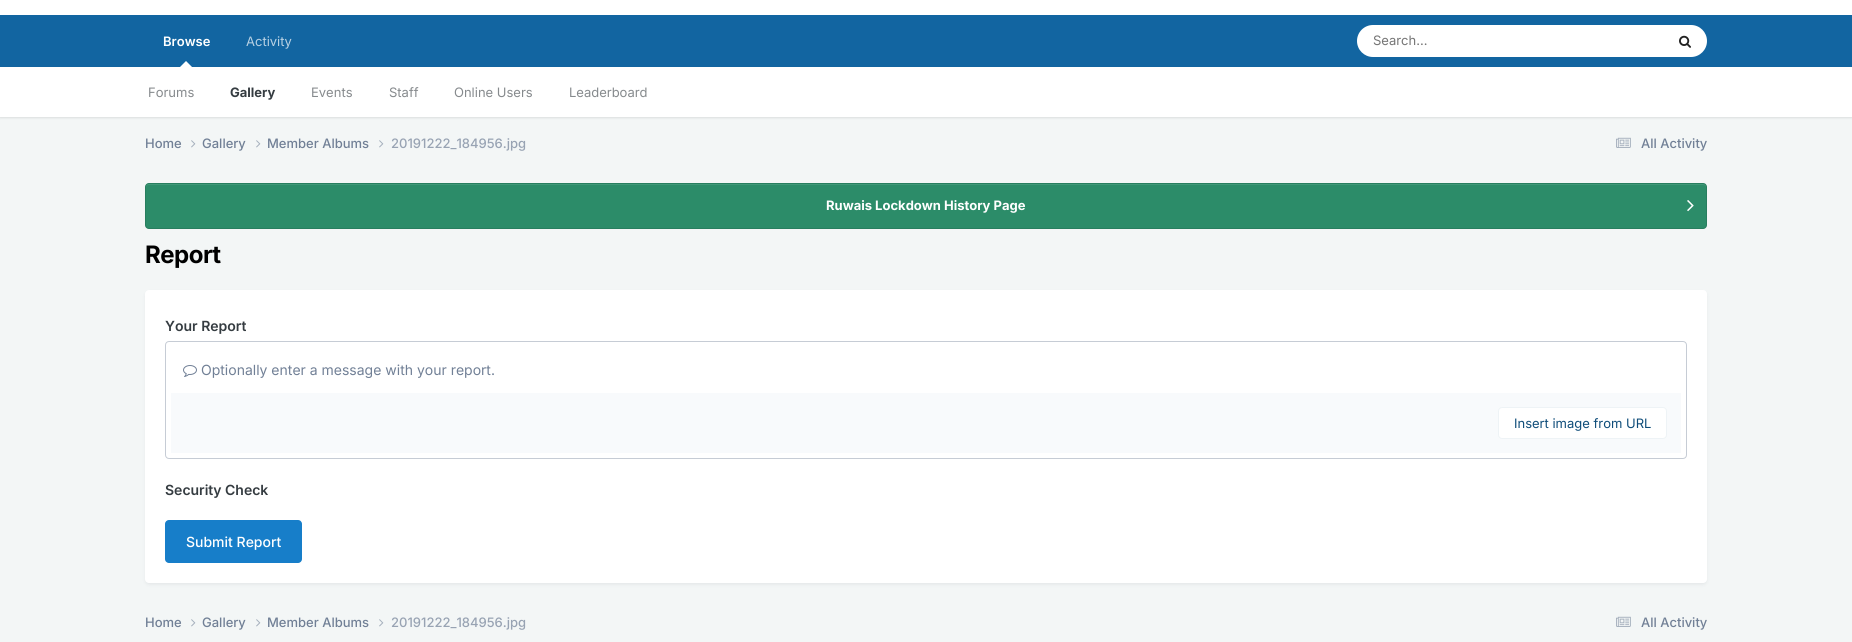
import math
import cairo

surface = cairo.ImageSurface(cairo.FORMAT_RGB24, 1852, 642)
ctx = cairo.Context(surface)
options = cairo.FontOptions()
options.set_hint_metrics(cairo.HINT_METRICS_OFF)
options.set_hint_style(cairo.HINT_STYLE_NONE)
ctx.set_font_options(options)
ctx.set_miter_limit(4)


def spaced_text(x, y, s, letter, word):
    ctx.move_to(x, y)
    for ch in s:
        ctx.show_text(ch)
        ctx.rel_move_to(letter + word * (ch == ' '), 0)


def round_rect(x, y, w, h, r):
    ctx.new_sub_path()
    for i, (u, v) in enumerate([(x + w - r, y + h - r), (x + r, y + h - r), (x + r, y + r), (x + w - r, y + r)]):
        ctx.arc(u, v, r, i * math.pi / 2, (i + 1) * math.pi / 2)
    ctx.close_path()


def shadow(x, y, w, h, r, blur, alpha):
    ctx.push_group_with_content(cairo.CONTENT_ALPHA)
    ctx.set_operator(cairo.OPERATOR_SOURCE)
    for i in range(15, -16, -2):
        e = blur * i / 6
        if min(w, h) + 2 * e > 0:
            ctx.set_source_rgba(0, 0, 0, alpha * math.erfc((i - 1) / 8.5) / 2)
            round_rect(x - e, y - e, w + 2 * e, h + 2 * e, max(0, min(r + e + blur * .6, min(w, h) / 2 + e)))
            ctx.fill()
    ctx.mask(ctx.pop_group())


def picture(path, x, y, w, h):
    ctx.save()
    ctx.set_source_surface(cairo.ImageSurface.create_from_png(path), x, y)
    ctx.rectangle(x, y, w, h)
    ctx.fill()
    ctx.restore()


ctx.set_source_rgb(0.953, 0.961, 0.961)
ctx.paint()
ctx.set_source_rgb(1, 1, 1)
ctx.rectangle(0, 0, 1852, 15)
ctx.fill()
ctx.set_source_rgb(0.071, 0.396, 0.631)
ctx.rectangle(0, 15, 1852, 52)
ctx.fill()
ctx.select_font_face("Inter SemiBold")
ctx.set_font_size(13)
ctx.set_source_rgb(1, 1, 1)
ctx.move_to(163, 46)
ctx.show_text("Browse")
ctx.set_source_rgb(0, 0, 0)
shadow(0, 68, 1852, 50, 0, 1, 0.1)
ctx.set_source_rgb(1, 1, 1)
ctx.new_path()
ctx.move_to(192, 67)
ctx.line_to(180, 67)
ctx.line_to(186, 61)
ctx.close_path()
ctx.fill()
ctx.rectangle(0, 67, 1852, 50)
ctx.fill()
ctx.select_font_face("Inter")
ctx.set_source_rgb(0.525, 0.541, 0.553)
ctx.move_to(148, 97)
ctx.show_text("Forums")
ctx.select_font_face("Inter", cairo.FONT_SLANT_NORMAL, cairo.FONT_WEIGHT_BOLD)
ctx.set_source_rgb(0.208, 0.235, 0.255)
ctx.move_to(230, 97)
ctx.show_text("Gallery")
ctx.select_font_face("Inter")
ctx.set_source_rgb(0.525, 0.541, 0.553)
ctx.move_to(311, 97)
ctx.show_text("Events")
ctx.move_to(389, 97)
ctx.show_text("Staff")
ctx.move_to(454, 97)
ctx.show_text("Online Users")
ctx.move_to(569, 97)
ctx.show_text("Leaderboard")
ctx.set_source_rgb(0.722, 0.82, 0.89)
ctx.move_to(246, 46)
ctx.show_text("Activity")
ctx.set_source_rgb(1, 1, 1)
round_rect(1357, 25, 350, 32, 16)
ctx.fill()
ctx.set_source_rgb(0.459, 0.459, 0.459)
ctx.move_to(1373, 45)
ctx.show_text("Search...")
picture("img1.png", 1679, 35, 12, 13)
ctx.select_font_face("Inter Medium")
ctx.set_source_rgb(0.443, 0.502, 0.588)
ctx.move_to(145, 148)
ctx.show_text("Home")
picture("img2.png", 191, 140, 5, 8)
ctx.move_to(202, 148)
ctx.show_text("Gallery")
picture("img2.png", 256, 140, 5, 8)
ctx.move_to(267, 148)
ctx.show_text("Member Albums")
picture("img2.png", 379, 140, 5, 8)
ctx.set_source_rgb(0.596, 0.639, 0.702)
ctx.move_to(391, 148)
ctx.show_text("20191222_184956.jpg")
picture("img3.png", 1616, 137, 15, 11)
ctx.set_source_rgb(0.443, 0.502, 0.588)
ctx.move_to(1641, 148)
ctx.show_text("All Activity")
ctx.set_source_rgb(0.173, 0.549, 0.412)
round_rect(145, 183, 1562, 46, 4)
ctx.fill()
ctx.set_source_rgb(0.255, 0.596, 0.471)
ctx.new_path()
ctx.move_to(149, 185)
ctx.line_to(1703, 185)
ctx.curve_to(1705, 185, 1706, 186, 1706, 188)
ctx.line_to(1706, 187)
ctx.curve_to(1706, 185, 1705, 184, 1703, 184)
ctx.line_to(149, 184)
ctx.curve_to(147, 184, 146, 185, 146, 187)
ctx.line_to(146, 188)
ctx.curve_to(146, 186, 147, 185, 149, 185)
ctx.close_path()
ctx.fill()
round_rect(145.5, 183.5, 1561, 45, 3.5)
ctx.set_source_rgba(0, 0, 0, 0.1)
ctx.set_line_width(1)
ctx.stroke()
ctx.select_font_face("Inter", cairo.FONT_SLANT_NORMAL, cairo.FONT_WEIGHT_BOLD)
ctx.set_source_rgb(1, 1, 1)
ctx.move_to(826, 210)
ctx.show_text("Ruwais Lockdown History Page")
picture("img4.png", 1687, 200, 7, 12)
ctx.set_font_size(24)
ctx.set_source_rgb(0, 0, 0)
spaced_text(145, 263, "Report", -0.5, 0)
ctx.set_source_rgb(0.176, 0.216, 0.282)
shadow(146, 293, 1560, 291, 3, 2, 0.1)
ctx.set_source_rgb(1, 1, 1)
round_rect(145, 290, 1562, 293, 4)
ctx.fill()
ctx.select_font_face("Inter SemiBold")
ctx.set_font_size(14)
ctx.set_source_rgb(0.208, 0.235, 0.255)
ctx.move_to(165, 331)
ctx.show_text("Your Report")
round_rect(165.5, 341.5, 1521, 117, 3.5)
ctx.set_source_rgb(0.776, 0.8, 0.835)
ctx.stroke()
picture("img5.png", 183, 365, 14, 12)
ctx.select_font_face("Inter")
ctx.set_source_rgb(0.443, 0.502, 0.588)
ctx.move_to(201, 375)
ctx.show_text("Optionally enter a message with your report.")
ctx.set_source_rgb(0.969, 0.98, 0.988)
ctx.rectangle(171, 393, 1510, 60)
ctx.fill()
ctx.set_source_rgb(1, 1, 1)
round_rect(1498, 407, 169, 32, 4)
ctx.fill()
round_rect(1498.5, 407.5, 168, 31, 3.5)
ctx.set_source_rgba(0.055, 0.298, 0.475, 0.07)
ctx.stroke()
ctx.set_font_size(13)
ctx.set_source_rgb(0.055, 0.298, 0.475)
ctx.move_to(1514, 428)
ctx.show_text("Insert image from URL")
ctx.select_font_face("Inter SemiBold")
ctx.set_font_size(14)
ctx.set_source_rgb(0.208, 0.235, 0.255)
ctx.move_to(165, 495)
ctx.show_text("Security Check")
ctx.set_source_rgb(0.09, 0.494, 0.788)
round_rect(165, 520, 137, 43, 4)
ctx.fill()
ctx.select_font_face("Inter Medium")
ctx.set_source_rgb(1, 1, 1)
ctx.move_to(186, 547)
ctx.show_text("Submit Report")
ctx.set_font_size(13)
ctx.set_source_rgb(0.443, 0.502, 0.588)
ctx.move_to(145, 627)
ctx.show_text("Home")
picture("img2.png", 191, 619, 5, 8)
ctx.move_to(202, 627)
ctx.show_text("Gallery")
picture("img2.png", 256, 619, 5, 8)
ctx.move_to(267, 627)
ctx.show_text("Member Albums")
picture("img2.png", 379, 619, 5, 8)
ctx.set_source_rgb(0.596, 0.639, 0.702)
ctx.move_to(391, 627)
ctx.show_text("20191222_184956.jpg")
picture("img3.png", 1616, 616, 15, 11)
ctx.set_source_rgb(0.443, 0.502, 0.588)
ctx.move_to(1641, 627)
ctx.show_text("All Activity")
surface.write_to_png("page.png")
